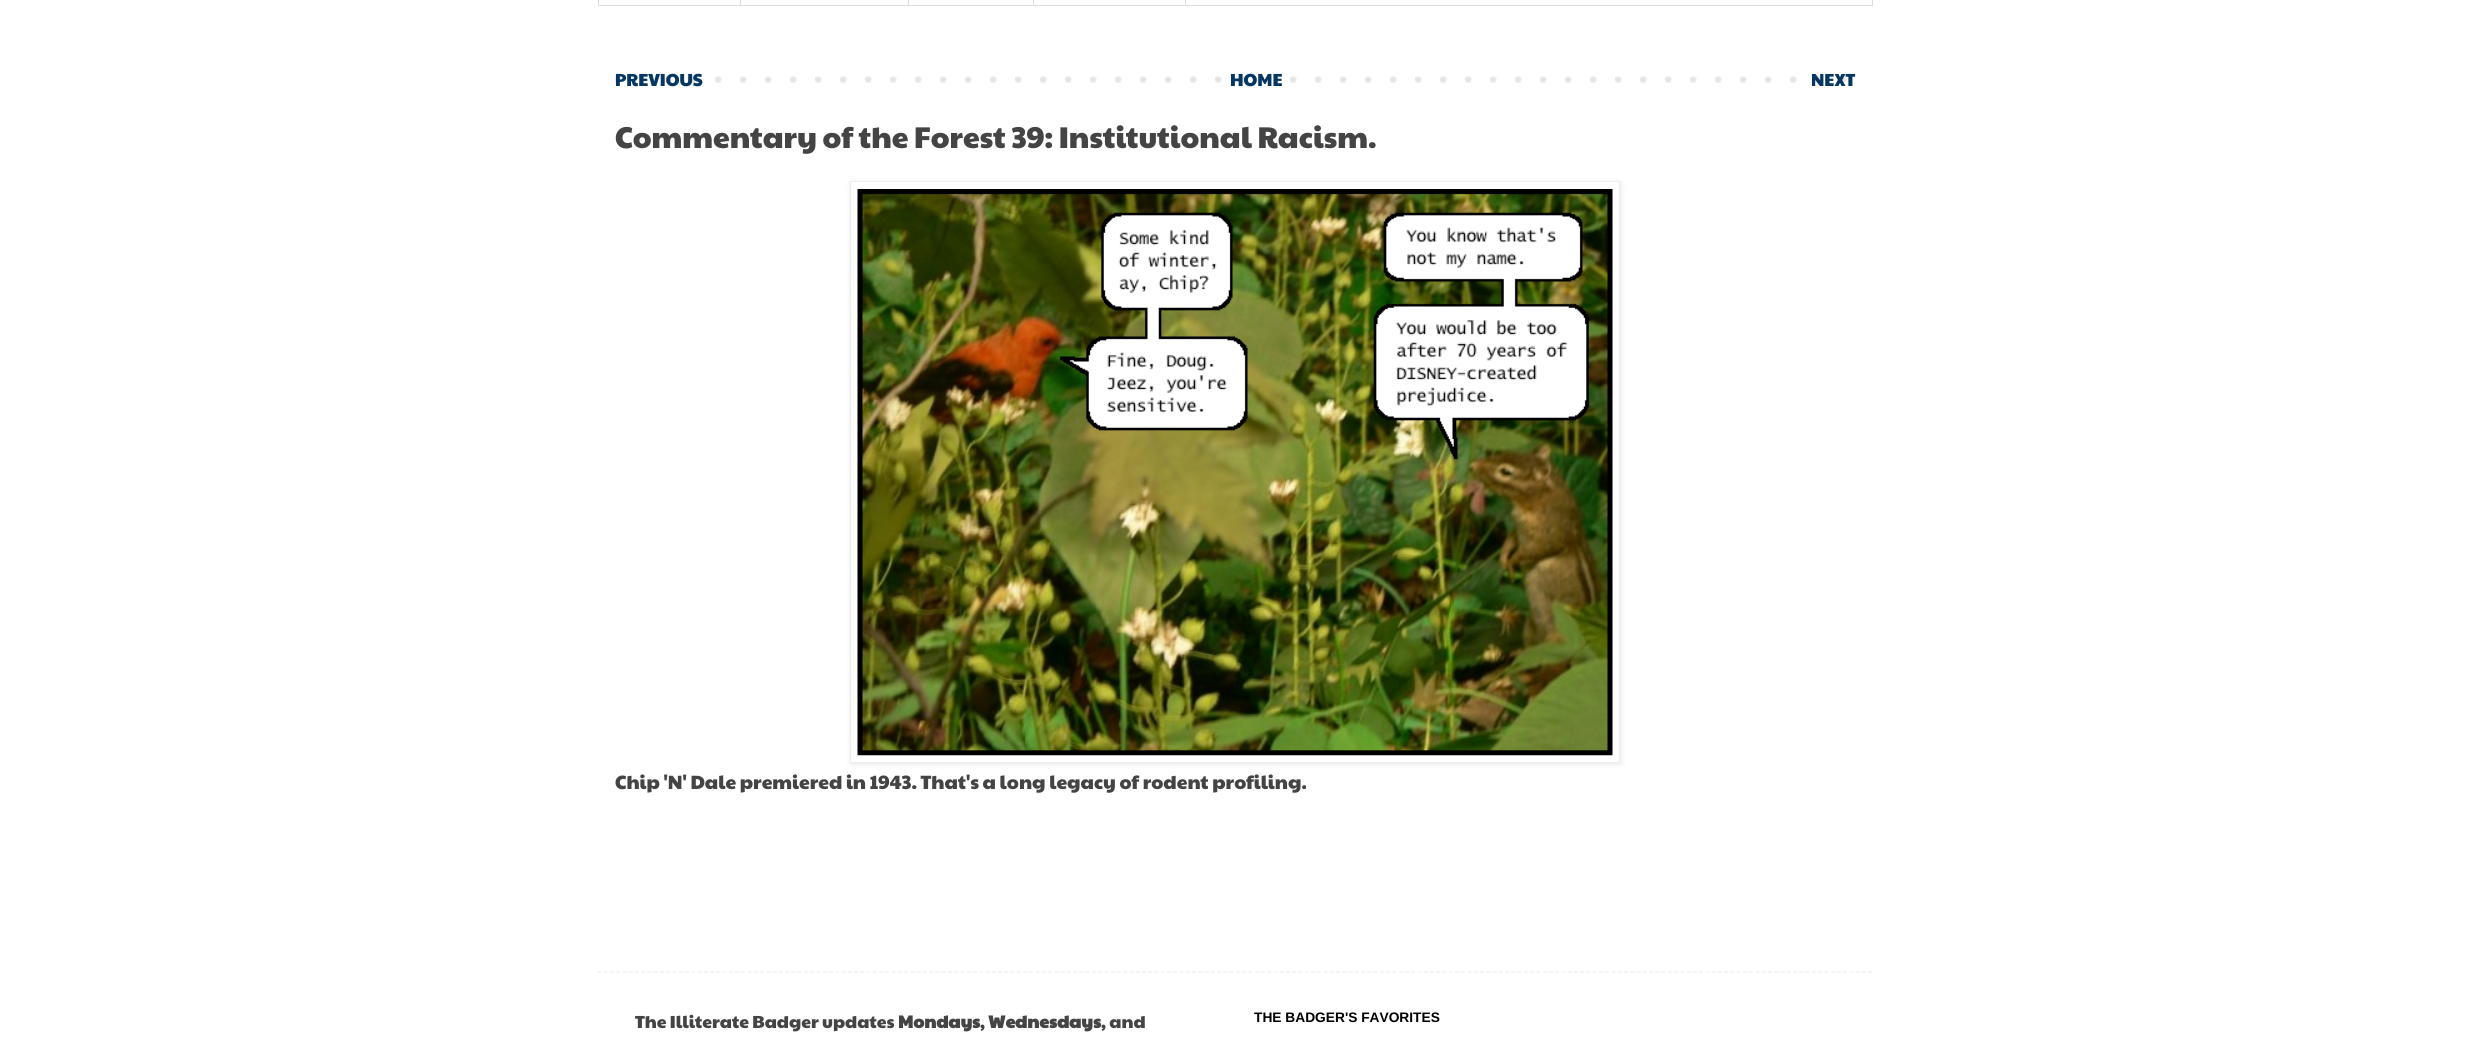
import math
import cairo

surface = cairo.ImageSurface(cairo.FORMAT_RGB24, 2470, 1042)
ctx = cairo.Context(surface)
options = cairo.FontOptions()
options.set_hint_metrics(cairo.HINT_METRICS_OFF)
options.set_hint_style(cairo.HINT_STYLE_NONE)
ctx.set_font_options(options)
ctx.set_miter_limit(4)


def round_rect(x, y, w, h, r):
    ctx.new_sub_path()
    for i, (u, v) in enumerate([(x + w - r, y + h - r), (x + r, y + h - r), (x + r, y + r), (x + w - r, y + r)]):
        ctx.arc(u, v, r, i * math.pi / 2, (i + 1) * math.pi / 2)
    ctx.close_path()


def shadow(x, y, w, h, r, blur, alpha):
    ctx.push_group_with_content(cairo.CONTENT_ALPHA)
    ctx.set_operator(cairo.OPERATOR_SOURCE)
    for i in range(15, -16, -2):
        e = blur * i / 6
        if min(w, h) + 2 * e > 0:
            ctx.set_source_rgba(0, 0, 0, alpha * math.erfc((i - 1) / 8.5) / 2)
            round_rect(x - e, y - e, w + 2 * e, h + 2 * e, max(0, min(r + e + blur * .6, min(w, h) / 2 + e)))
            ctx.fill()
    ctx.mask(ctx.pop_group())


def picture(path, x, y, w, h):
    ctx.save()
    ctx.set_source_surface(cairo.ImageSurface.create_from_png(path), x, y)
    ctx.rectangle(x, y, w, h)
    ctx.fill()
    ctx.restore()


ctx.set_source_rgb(1, 1, 1)
ctx.paint()
ctx.rectangle(598.5, -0.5, 1274, 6)
ctx.set_source_rgb(0.867, 0.867, 0.867)
ctx.set_line_width(1)
ctx.stroke()
ctx.rectangle(740, 0, 1, 5)
ctx.fill()
ctx.rectangle(908, 0, 1, 5)
ctx.fill()
ctx.rectangle(1033, 0, 1, 5)
ctx.fill()
ctx.rectangle(1185, 0, 1, 5)
ctx.fill()
picture("img1.png", 615, 76, 1232, 7)
ctx.select_font_face("Paytone One")
ctx.set_font_size(17.5)
ctx.set_source_rgb(0.027, 0.216, 0.388)
ctx.move_to(615, 86)
ctx.show_text("PREVIOUS")
ctx.move_to(1230, 86)
ctx.show_text("HOME")
ctx.move_to(1811, 86)
ctx.show_text("NEXT")
ctx.set_font_size(30)
ctx.set_source_rgb(0.267, 0.267, 0.267)
ctx.move_to(615, 148)
ctx.show_text("Commentary of the Forest 39: Institutional Racism.")
ctx.set_source_rgb(0, 0, 0)
shadow(851, 183, 770, 581, 0, 3, 0.1)
ctx.set_source_rgb(1, 1, 1)
ctx.rectangle(850.5, 181.5, 769, 581)
ctx.fill_preserve()
ctx.set_source_rgb(0.933, 0.933, 0.933)
ctx.stroke()
picture("img2.png", 857, 189, 756, 567)
ctx.set_font_size(19.25)
ctx.set_source_rgb(0.267, 0.267, 0.267)
ctx.move_to(615, 789)
ctx.show_text("Chip 'N' Dale premiered in 1943. That's a long legacy of rodent profiling.")
ctx.new_path()
ctx.move_to(597.5, 972)
ctx.line_to(1872.5, 972)
ctx.set_source_rgb(0.933, 0.933, 0.933)
ctx.set_line_width(1.2)
ctx.set_dash([3.75, 2.51])
ctx.stroke()
ctx.set_font_size(17.5)
ctx.set_source_rgb(0.267, 0.267, 0.267)
ctx.move_to(635, 1028)
ctx.show_text("The Illiterate Badger updates")
ctx.select_font_face("Paytone One", cairo.FONT_SLANT_NORMAL, cairo.FONT_WEIGHT_BOLD)
ctx.move_to(898, 1028)
ctx.show_text("Mondays")
ctx.select_font_face("Paytone One")
ctx.move_to(980, 1028)
ctx.show_text(",")
ctx.select_font_face("Paytone One", cairo.FONT_SLANT_NORMAL, cairo.FONT_WEIGHT_BOLD)
ctx.move_to(988, 1028)
ctx.show_text("Wednesdays")
ctx.select_font_face("Paytone One")
ctx.move_to(1101, 1028)
ctx.show_text(", and")
ctx.select_font_face("Liberation Sans", cairo.FONT_SLANT_NORMAL, cairo.FONT_WEIGHT_BOLD)
ctx.set_font_size(13.75)
ctx.set_source_rgb(0, 0, 0)
ctx.move_to(1254, 1022)
ctx.show_text("THE BADGER'S FAVORITES")
surface.write_to_png("page.png")
